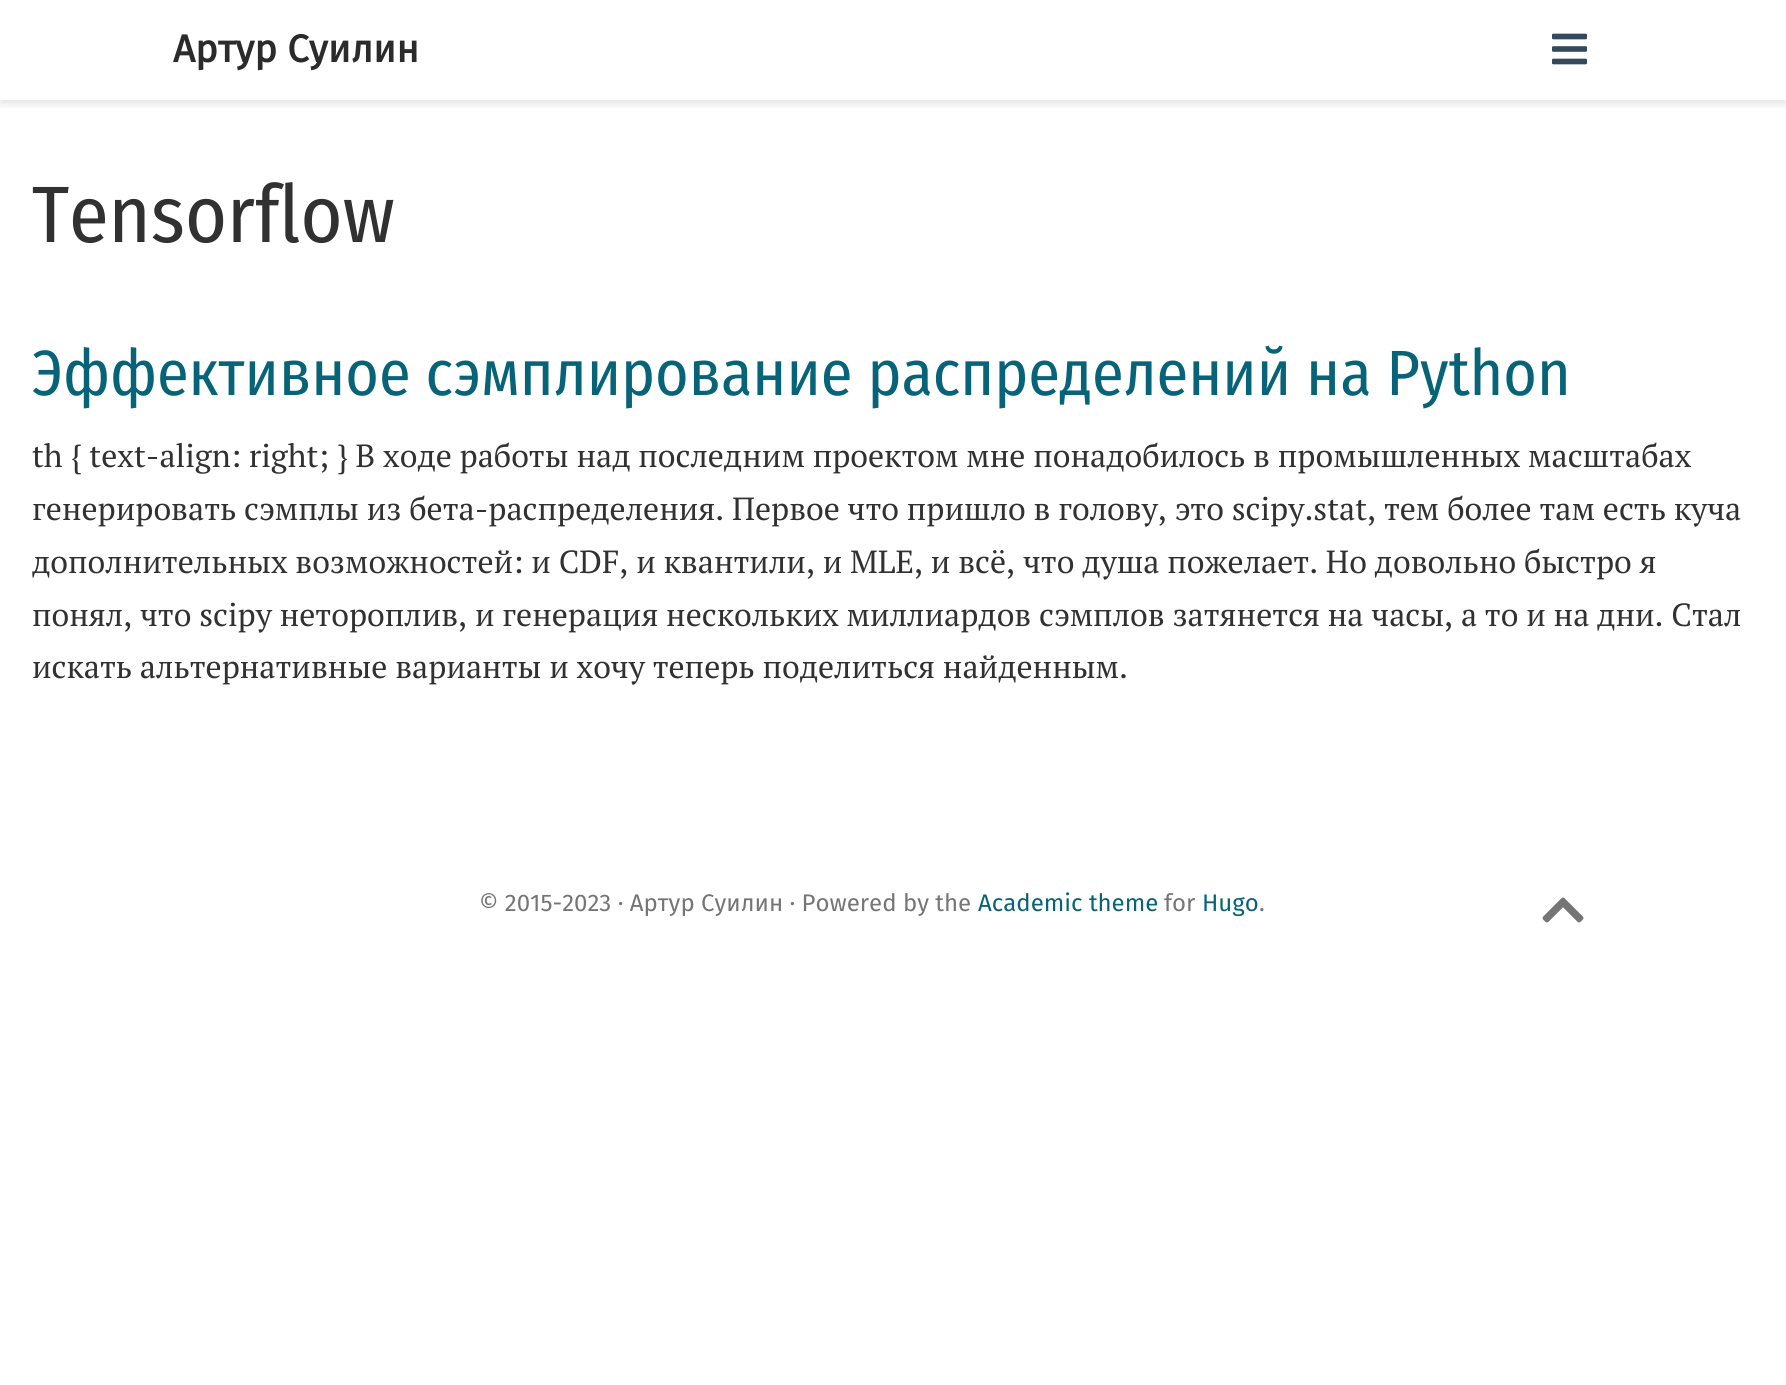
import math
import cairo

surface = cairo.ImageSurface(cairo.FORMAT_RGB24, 1786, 1385)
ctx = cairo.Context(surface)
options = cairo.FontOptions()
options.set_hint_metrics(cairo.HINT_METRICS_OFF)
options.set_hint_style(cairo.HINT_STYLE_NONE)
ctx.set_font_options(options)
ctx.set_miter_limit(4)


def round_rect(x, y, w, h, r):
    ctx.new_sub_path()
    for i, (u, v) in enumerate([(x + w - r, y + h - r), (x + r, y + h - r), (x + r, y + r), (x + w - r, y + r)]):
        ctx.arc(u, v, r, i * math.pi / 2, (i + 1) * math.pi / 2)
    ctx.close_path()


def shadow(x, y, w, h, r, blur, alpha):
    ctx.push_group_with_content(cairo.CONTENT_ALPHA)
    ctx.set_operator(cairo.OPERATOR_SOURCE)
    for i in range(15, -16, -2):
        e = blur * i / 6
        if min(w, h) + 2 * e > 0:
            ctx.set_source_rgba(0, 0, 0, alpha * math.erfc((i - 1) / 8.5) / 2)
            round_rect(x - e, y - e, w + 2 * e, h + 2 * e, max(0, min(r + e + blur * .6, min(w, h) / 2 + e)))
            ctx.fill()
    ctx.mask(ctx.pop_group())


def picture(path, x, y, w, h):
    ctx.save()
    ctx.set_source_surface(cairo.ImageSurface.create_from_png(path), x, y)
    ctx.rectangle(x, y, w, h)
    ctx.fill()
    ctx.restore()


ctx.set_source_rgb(1, 1, 1)
ctx.paint()
ctx.save()
ctx.rectangle(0, 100, 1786, 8)
ctx.clip()
ctx.set_source_rgb(0, 0, 0)
shadow(0, 4, 1786, 100, 0, 4, 0.11)
ctx.restore()
ctx.select_font_face("Fira Sans", cairo.FONT_SLANT_NORMAL, cairo.FONT_WEIGHT_BOLD)
ctx.set_font_size(38.5)
ctx.set_source_rgb(0.169, 0.169, 0.169)
ctx.move_to(173, 62)
ctx.show_text("Артур Суилин")
picture("img1.png", 1552, 33, 35, 32)
ctx.select_font_face("Fira Sans Condensed")
ctx.set_font_size(80)
ctx.set_source_rgb(0.192, 0.192, 0.192)
ctx.move_to(32, 242)
ctx.show_text("Tensorflow")
ctx.set_font_size(64)
ctx.set_source_rgb(0.031, 0.388, 0.467)
ctx.move_to(32, 395)
ctx.show_text("Эффективное сэмплирование распределений на Python")
ctx.select_font_face("PT Serif")
ctx.set_font_size(32)
ctx.set_source_rgb(0.192, 0.192, 0.192)
ctx.move_to(32, 467)
ctx.show_text("th { text-align: right; } В ходе работы над последним проектом мне понадобилось в промышленных масштабах")
ctx.move_to(32, 520)
ctx.show_text("генерировать сэмплы из бета-распределения. Первое что пришло в голову, это scipy.stat, тем более там есть куча")
ctx.move_to(32, 573)
ctx.show_text("дополнительных возможностей: и CDF, и квантили, и MLE, и всё, что душа пожелает. Но довольно быстро я")
ctx.move_to(32, 626)
ctx.show_text("понял, что scipy нетороплив, и генерация нескольких миллиардов сэмплов затянется на часы, а то и на дни. Стал")
ctx.move_to(32, 678)
ctx.show_text("искать альтернативные варианты и хочу теперь поделиться найденным.")
ctx.select_font_face("Fira Sans")
ctx.set_font_size(24)
ctx.set_source_rgb(0.459, 0.459, 0.459)
ctx.move_to(479, 911)
ctx.show_text("© 2015-2023 · Артур Суилин · Powered by the")
ctx.set_source_rgb(0.031, 0.388, 0.467)
ctx.move_to(978, 911)
ctx.show_text("Academic theme")
ctx.set_source_rgb(0.459, 0.459, 0.459)
ctx.move_to(1164, 911)
ctx.show_text("for")
ctx.set_source_rgb(0.031, 0.388, 0.467)
ctx.move_to(1202, 911)
ctx.show_text("Hugo")
ctx.set_source_rgb(0.459, 0.459, 0.459)
ctx.move_to(1259, 911)
ctx.show_text(".")
picture("img2.png", 1542, 897, 42, 26)
surface.write_to_png("page.png")
